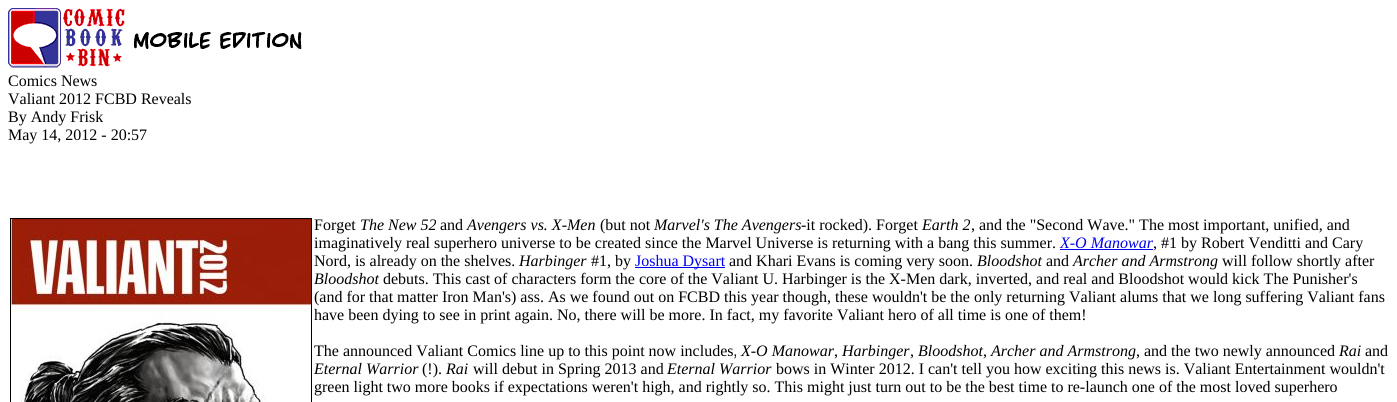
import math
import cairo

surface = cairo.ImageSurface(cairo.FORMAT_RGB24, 1397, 402)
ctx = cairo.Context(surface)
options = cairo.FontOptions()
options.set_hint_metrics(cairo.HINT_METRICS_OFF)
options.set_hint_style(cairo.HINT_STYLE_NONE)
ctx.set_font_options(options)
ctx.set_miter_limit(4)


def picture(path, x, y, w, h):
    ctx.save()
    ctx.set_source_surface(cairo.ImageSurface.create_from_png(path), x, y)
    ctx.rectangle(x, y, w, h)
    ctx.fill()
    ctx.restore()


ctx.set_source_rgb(1, 1, 1)
ctx.paint()
picture("img1.png", 8, 8, 294, 60)
ctx.select_font_face("Liberation Serif")
ctx.set_font_size(16)
ctx.set_source_rgb(0, 0, 0)
ctx.move_to(8, 86)
ctx.show_text("Comics News")
ctx.move_to(8, 104)
ctx.show_text("Valiant 2012 FCBD Reveals")
ctx.move_to(8, 122)
ctx.show_text("By Andy Frisk")
ctx.move_to(8, 140)
ctx.show_text("May 14, 2012 - 20:57")
ctx.rectangle(10.5, 218.5, 301, 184)
ctx.set_line_width(1)
ctx.stroke()
picture("img2.png", 11, 219, 300, 183)
ctx.move_to(314, 230)
ctx.show_text("Forget")
ctx.select_font_face("Liberation Serif", cairo.FONT_SLANT_ITALIC)
ctx.move_to(360, 230)
ctx.show_text("The New 52")
ctx.select_font_face("Liberation Serif")
ctx.move_to(440, 230)
ctx.show_text("and")
ctx.select_font_face("Liberation Serif", cairo.FONT_SLANT_ITALIC)
ctx.move_to(467, 230)
ctx.show_text("Avengers vs. X-Men")
ctx.select_font_face("Liberation Serif")
ctx.move_to(600, 230)
ctx.show_text("(but not")
ctx.select_font_face("Liberation Serif", cairo.FONT_SLANT_ITALIC)
ctx.move_to(654, 230)
ctx.show_text("Marvel's The Avengers")
ctx.select_font_face("Liberation Serif")
ctx.move_to(801, 230)
ctx.show_text("-it rocked). Forget")
ctx.select_font_face("Liberation Serif", cairo.FONT_SLANT_ITALIC)
ctx.move_to(922, 230)
ctx.show_text("Earth 2")
ctx.select_font_face("Liberation Serif")
ctx.move_to(971, 230)
ctx.show_text(", and the \"Second Wave.\" The most important, unified, and")
ctx.move_to(314, 248)
ctx.show_text("imaginatively real superhero universe to be created since the Marvel Universe is returning with a bang this summer.")
ctx.select_font_face("Liberation Serif", cairo.FONT_SLANT_ITALIC)
ctx.set_source_rgb(0, 0, 0.933)
ctx.move_to(1060, 248)
ctx.show_text("X-O Manowar")
ctx.rectangle(1060, 249, 93, 1)
ctx.fill()
ctx.select_font_face("Liberation Serif")
ctx.set_source_rgb(0, 0, 0)
ctx.move_to(1153, 248)
ctx.show_text(", #1 by Robert Venditti and Cary")
ctx.move_to(314, 266)
ctx.show_text("Nord, is already on the shelves.")
ctx.select_font_face("Liberation Serif", cairo.FONT_SLANT_ITALIC)
ctx.move_to(519, 266)
ctx.show_text("Harbinger")
ctx.select_font_face("Liberation Serif")
ctx.move_to(591, 266)
ctx.show_text("#1, by")
ctx.set_source_rgb(0, 0, 0.933)
ctx.rectangle(635, 267, 90, 1)
ctx.fill()
ctx.move_to(635, 266)
ctx.show_text("Joshua Dysart")
ctx.set_source_rgb(0, 0, 0)
ctx.move_to(729, 266)
ctx.show_text("and Khari Evans is coming very soon.")
ctx.select_font_face("Liberation Serif", cairo.FONT_SLANT_ITALIC)
ctx.move_to(977, 266)
ctx.show_text("Bloodshot")
ctx.select_font_face("Liberation Serif")
ctx.move_to(1046, 266)
ctx.show_text("and")
ctx.select_font_face("Liberation Serif", cairo.FONT_SLANT_ITALIC)
ctx.move_to(1073, 266)
ctx.show_text("Archer and Armstrong")
ctx.select_font_face("Liberation Serif")
ctx.move_to(1222, 266)
ctx.show_text("will follow shortly after")
ctx.select_font_face("Liberation Serif", cairo.FONT_SLANT_ITALIC)
ctx.move_to(314, 284)
ctx.show_text("Bloodshot")
ctx.select_font_face("Liberation Serif")
ctx.move_to(383, 284)
ctx.show_text("debuts. This cast of characters form the core of the Valiant U. Harbinger is the X-Men dark, inverted, and real and Bloodshot would kick The Punisher's")
ctx.move_to(314, 302)
ctx.show_text("(and for that matter Iron Man's) ass. As we found out on FCBD this year though, these wouldn't be the only returning Valiant alums that we long suffering Valiant fans")
ctx.move_to(314, 320)
ctx.show_text("have been dying to see in print again. No, there will be more. In fact, my favorite Valiant hero of all time is one of them!")
ctx.move_to(314, 356)
ctx.show_text("The announced Valiant Comics line up to this point now includes,")
ctx.select_font_face("Liberation Serif", cairo.FONT_SLANT_ITALIC)
ctx.move_to(741, 356)
ctx.show_text("X-O Manowar")
ctx.select_font_face("Liberation Serif")
ctx.move_to(834, 356)
ctx.show_text(",")
ctx.select_font_face("Liberation Serif", cairo.FONT_SLANT_ITALIC)
ctx.move_to(842, 356)
ctx.show_text("Harbinger")
ctx.select_font_face("Liberation Serif")
ctx.move_to(910, 356)
ctx.show_text(",")
ctx.select_font_face("Liberation Serif", cairo.FONT_SLANT_ITALIC)
ctx.move_to(918, 356)
ctx.show_text("Bloodshot")
ctx.select_font_face("Liberation Serif")
ctx.move_to(983, 356)
ctx.show_text(",")
ctx.select_font_face("Liberation Serif", cairo.FONT_SLANT_ITALIC)
ctx.move_to(991, 356)
ctx.show_text("Archer and Armstrong")
ctx.select_font_face("Liberation Serif")
ctx.move_to(1136, 356)
ctx.show_text(", and the two newly announced")
ctx.select_font_face("Liberation Serif", cairo.FONT_SLANT_ITALIC)
ctx.move_to(1339, 356)
ctx.show_text("Rai")
ctx.select_font_face("Liberation Serif")
ctx.move_to(1365, 356)
ctx.show_text("and")
ctx.select_font_face("Liberation Serif", cairo.FONT_SLANT_ITALIC)
ctx.move_to(314, 374)
ctx.show_text("Eternal Warrior")
ctx.select_font_face("Liberation Serif")
ctx.move_to(422, 374)
ctx.show_text("(!).")
ctx.select_font_face("Liberation Serif", cairo.FONT_SLANT_ITALIC)
ctx.move_to(446, 374)
ctx.show_text("Rai")
ctx.select_font_face("Liberation Serif")
ctx.move_to(473, 374)
ctx.show_text("will debut in Spring 2013 and")
ctx.select_font_face("Liberation Serif", cairo.FONT_SLANT_ITALIC)
ctx.move_to(667, 374)
ctx.show_text("Eternal Warrior")
ctx.select_font_face("Liberation Serif")
ctx.move_to(776, 374)
ctx.show_text("bows in Winter 2012. I can't tell you how exciting this news is. Valiant Entertainment wouldn't")
ctx.move_to(314, 392)
ctx.show_text("green light two more books if expectations weren't high, and rightly so. This might just turn out to be the best time to re-launch one of the most loved superhero")
surface.write_to_png("page.png")
